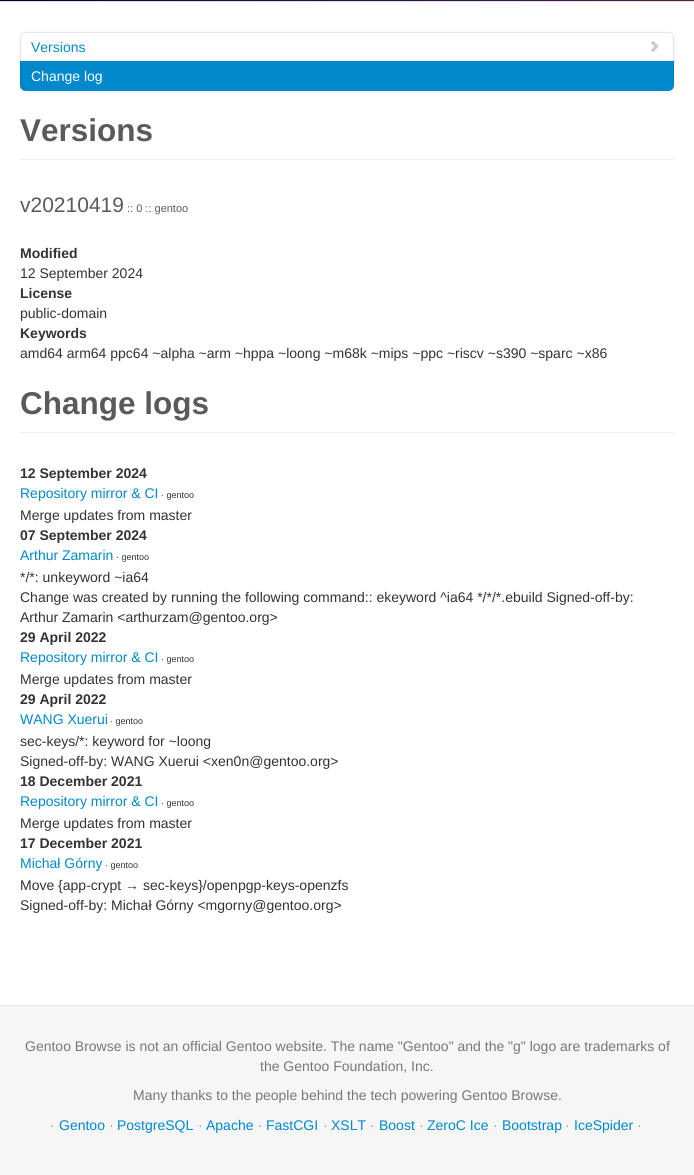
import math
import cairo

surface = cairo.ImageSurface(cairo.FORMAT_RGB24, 694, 1175)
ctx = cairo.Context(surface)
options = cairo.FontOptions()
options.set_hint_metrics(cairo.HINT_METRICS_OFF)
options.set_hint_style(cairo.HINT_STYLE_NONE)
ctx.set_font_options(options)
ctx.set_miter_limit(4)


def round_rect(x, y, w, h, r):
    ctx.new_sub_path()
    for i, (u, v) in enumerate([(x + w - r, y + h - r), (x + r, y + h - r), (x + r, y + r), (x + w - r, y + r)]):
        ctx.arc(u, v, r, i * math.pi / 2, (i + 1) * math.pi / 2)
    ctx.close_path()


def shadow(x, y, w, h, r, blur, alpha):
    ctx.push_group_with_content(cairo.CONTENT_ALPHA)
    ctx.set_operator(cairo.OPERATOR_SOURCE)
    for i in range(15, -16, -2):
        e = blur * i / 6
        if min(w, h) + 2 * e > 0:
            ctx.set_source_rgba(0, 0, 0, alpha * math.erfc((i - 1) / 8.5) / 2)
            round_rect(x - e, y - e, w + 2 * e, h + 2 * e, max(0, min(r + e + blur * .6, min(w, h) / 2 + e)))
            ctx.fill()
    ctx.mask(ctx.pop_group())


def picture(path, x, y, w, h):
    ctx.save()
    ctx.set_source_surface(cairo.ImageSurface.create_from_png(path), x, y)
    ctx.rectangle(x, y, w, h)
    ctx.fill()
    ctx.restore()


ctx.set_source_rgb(1, 1, 1)
ctx.paint()
gradient = cairo.LinearGradient(106, 107, 588, -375)
gradient.add_color_stop_rgba(0, 0.008, 0, 0.192, 1)
gradient.add_color_stop_rgba(1, 0.427, 0.2, 0.325, 1)
ctx.set_source(gradient)
ctx.rectangle(0, 0, 694, 1)
ctx.fill()
ctx.set_source_rgb(0.867, 0.867, 0.867)
ctx.rectangle(0, 1, 694, 1)
ctx.fill()
ctx.set_source_rgb(0, 0, 0)
shadow(20, 33, 654, 59, 6, 2, 0.07)
ctx.set_source_rgb(1, 1, 1)
round_rect(20, 32, 654, 59, 6)
ctx.fill()
ctx.new_path()
ctx.move_to(26, 32.5)
ctx.line_to(668, 32.5)
ctx.curve_to(671, 32.5, 673.5, 35, 673.5, 38)
ctx.line_to(673.5, 61.5)
ctx.line_to(20.5, 61.5)
ctx.line_to(20.5, 38)
ctx.curve_to(20.5, 35, 23, 32.5, 26, 32.5)
ctx.close_path()
ctx.set_source_rgb(0.898, 0.898, 0.898)
ctx.set_line_width(1)
ctx.stroke()
ctx.select_font_face("Liberation Sans")
ctx.set_font_size(14)
ctx.set_source_rgb(0, 0.533, 0.8)
ctx.move_to(31, 52)
ctx.show_text("Versions")
picture("img1.png", 651, 41, 8, 11)
ctx.new_path()
ctx.move_to(20, 61)
ctx.line_to(674, 61)
ctx.line_to(674, 85)
ctx.curve_to(674, 88.5, 671.5, 91, 668, 91)
ctx.line_to(26, 91)
ctx.curve_to(22.5, 91, 20, 88.5, 20, 85)
ctx.close_path()
ctx.fill()
ctx.set_source_rgba(0, 0, 0, 0.1)
ctx.new_path()
ctx.move_to(667, 91)
ctx.curve_to(675.5, 91, 674, 83.5, 674, 77)
ctx.line_to(674, 61)
ctx.line_to(673, 61)
ctx.line_to(673, 85)
ctx.curve_to(673, 88, 670, 91, 667, 91)
ctx.close_path()
ctx.fill()
ctx.new_path()
ctx.move_to(20, 61)
ctx.line_to(20, 77)
ctx.curve_to(20, 83.5, 18.5, 91, 27, 91)
ctx.curve_to(24, 91, 21, 88, 21, 85)
ctx.line_to(21, 61)
ctx.close_path()
ctx.fill()
ctx.set_source_rgb(1, 1, 1)
ctx.move_to(31, 81)
ctx.show_text("Change log")
ctx.set_source_rgb(0.933, 0.933, 0.933)
ctx.rectangle(20, 159, 654, 1)
ctx.fill()
ctx.select_font_face("Liberation Sans", cairo.FONT_SLANT_NORMAL, cairo.FONT_WEIGHT_BOLD)
ctx.set_font_size(31.5)
ctx.set_source_rgb(0.353, 0.353, 0.353)
ctx.move_to(20, 141)
ctx.show_text("Versions")
ctx.select_font_face("Liberation Sans")
ctx.set_font_size(21)
ctx.move_to(20, 212)
ctx.show_text("v20210419")
ctx.set_font_size(11)
ctx.move_to(127, 212)
ctx.show_text(":: 0 :: gentoo")
ctx.select_font_face("Liberation Sans", cairo.FONT_SLANT_NORMAL, cairo.FONT_WEIGHT_BOLD)
ctx.set_font_size(14)
ctx.set_source_rgb(0.2, 0.2, 0.2)
ctx.move_to(20, 258)
ctx.show_text("Modified")
ctx.select_font_face("Liberation Sans")
ctx.move_to(20, 278)
ctx.show_text("12 September 2024")
ctx.select_font_face("Liberation Sans", cairo.FONT_SLANT_NORMAL, cairo.FONT_WEIGHT_BOLD)
ctx.move_to(20, 298)
ctx.show_text("License")
ctx.select_font_face("Liberation Sans")
ctx.move_to(20, 318)
ctx.show_text("public-domain")
ctx.select_font_face("Liberation Sans", cairo.FONT_SLANT_NORMAL, cairo.FONT_WEIGHT_BOLD)
ctx.move_to(20, 338)
ctx.show_text("Keywords")
ctx.select_font_face("Liberation Sans")
ctx.move_to(20, 358)
ctx.show_text("amd64 arm64 ppc64 ~alpha ~arm ~hppa ~loong ~m68k ~mips ~ppc ~riscv ~s390 ~sparc ~x86")
ctx.set_source_rgb(0.933, 0.933, 0.933)
ctx.rectangle(20, 432, 654, 1)
ctx.fill()
ctx.select_font_face("Liberation Sans", cairo.FONT_SLANT_NORMAL, cairo.FONT_WEIGHT_BOLD)
ctx.set_font_size(31.5)
ctx.set_source_rgb(0.353, 0.353, 0.353)
ctx.move_to(20, 414)
ctx.show_text("Change logs")
ctx.set_font_size(14)
ctx.set_source_rgb(0.2, 0.2, 0.2)
ctx.move_to(20, 478)
ctx.show_text("12 September 2024")
ctx.select_font_face("Liberation Sans")
ctx.set_source_rgb(0, 0.533, 0.8)
ctx.move_to(20, 498)
ctx.show_text("Repository mirror & CI")
ctx.set_font_size(9)
ctx.set_source_rgb(0.2, 0.2, 0.2)
ctx.move_to(161, 498)
ctx.show_text("· gentoo")
ctx.set_font_size(14)
ctx.move_to(20, 520)
ctx.show_text("Merge updates from master")
ctx.select_font_face("Liberation Sans", cairo.FONT_SLANT_NORMAL, cairo.FONT_WEIGHT_BOLD)
ctx.move_to(20, 540)
ctx.show_text("07 September 2024")
ctx.select_font_face("Liberation Sans")
ctx.set_source_rgb(0, 0.533, 0.8)
ctx.move_to(20, 560)
ctx.show_text("Arthur Zamarin")
ctx.set_font_size(9)
ctx.set_source_rgb(0.2, 0.2, 0.2)
ctx.move_to(116, 560)
ctx.show_text("· gentoo")
ctx.set_font_size(14)
ctx.move_to(20, 582)
ctx.show_text("*/*: unkeyword ~ia64")
ctx.move_to(20, 602)
ctx.show_text("Change was created by running the following command:: ekeyword ^ia64 */*/*.ebuild Signed-off-by:")
ctx.move_to(20, 622)
ctx.show_text("Arthur Zamarin <arthurzam@gentoo.org>")
ctx.select_font_face("Liberation Sans", cairo.FONT_SLANT_NORMAL, cairo.FONT_WEIGHT_BOLD)
ctx.move_to(20, 642)
ctx.show_text("29 April 2022")
ctx.select_font_face("Liberation Sans")
ctx.set_source_rgb(0, 0.533, 0.8)
ctx.move_to(20, 662)
ctx.show_text("Repository mirror & CI")
ctx.set_font_size(9)
ctx.set_source_rgb(0.2, 0.2, 0.2)
ctx.move_to(161, 662)
ctx.show_text("· gentoo")
ctx.set_font_size(14)
ctx.move_to(20, 684)
ctx.show_text("Merge updates from master")
ctx.select_font_face("Liberation Sans", cairo.FONT_SLANT_NORMAL, cairo.FONT_WEIGHT_BOLD)
ctx.move_to(20, 704)
ctx.show_text("29 April 2022")
ctx.select_font_face("Liberation Sans")
ctx.set_source_rgb(0, 0.533, 0.8)
ctx.move_to(20, 724)
ctx.show_text("WANG Xuerui")
ctx.set_font_size(9)
ctx.set_source_rgb(0.2, 0.2, 0.2)
ctx.move_to(110, 724)
ctx.show_text("· gentoo")
ctx.set_font_size(14)
ctx.move_to(20, 746)
ctx.show_text("sec-keys/*: keyword for ~loong")
ctx.move_to(20, 766)
ctx.show_text("Signed-off-by: WANG Xuerui <xen0n@gentoo.org>")
ctx.select_font_face("Liberation Sans", cairo.FONT_SLANT_NORMAL, cairo.FONT_WEIGHT_BOLD)
ctx.move_to(20, 786)
ctx.show_text("18 December 2021")
ctx.select_font_face("Liberation Sans")
ctx.set_source_rgb(0, 0.533, 0.8)
ctx.move_to(20, 806)
ctx.show_text("Repository mirror & CI")
ctx.set_font_size(9)
ctx.set_source_rgb(0.2, 0.2, 0.2)
ctx.move_to(161, 806)
ctx.show_text("· gentoo")
ctx.set_font_size(14)
ctx.move_to(20, 828)
ctx.show_text("Merge updates from master")
ctx.select_font_face("Liberation Sans", cairo.FONT_SLANT_NORMAL, cairo.FONT_WEIGHT_BOLD)
ctx.move_to(20, 848)
ctx.show_text("17 December 2021")
ctx.select_font_face("Liberation Sans")
ctx.set_source_rgb(0, 0.533, 0.8)
ctx.move_to(20, 868)
ctx.show_text("Michał Górny")
ctx.set_font_size(9)
ctx.set_source_rgb(0.2, 0.2, 0.2)
ctx.move_to(105, 868)
ctx.show_text("· gentoo")
ctx.set_font_size(14)
ctx.move_to(20, 890)
ctx.show_text("Move {app-crypt → sec-keys}/openpgp-keys-openzfs")
ctx.move_to(20, 910)
ctx.show_text("Signed-off-by: Michał Górny <mgorny@gentoo.org>")
ctx.set_source_rgb(0.961, 0.961, 0.961)
ctx.rectangle(0, 1006, 694, 169)
ctx.fill()
ctx.set_source_rgb(0.898, 0.898, 0.898)
ctx.rectangle(0, 1005, 694, 1)
ctx.fill()
ctx.set_source_rgb(0.467, 0.467, 0.467)
ctx.move_to(25, 1051)
ctx.show_text("Gentoo Browse is not an official Gentoo website. The name \"Gentoo\" and the \"g\" logo are trademarks of")
ctx.move_to(260, 1071)
ctx.show_text("the Gentoo Foundation, Inc.")
ctx.move_to(133, 1100)
ctx.show_text("Many thanks to the people behind the tech powering Gentoo Browse.")
ctx.set_source_rgb(0.6, 0.6, 0.6)
ctx.move_to(50, 1130)
ctx.show_text("·")
ctx.set_source_rgb(0, 0.533, 0.8)
ctx.move_to(59, 1130)
ctx.show_text("Gentoo")
ctx.set_source_rgb(0.6, 0.6, 0.6)
ctx.move_to(109, 1130)
ctx.show_text("·")
ctx.set_source_rgb(0, 0.533, 0.8)
ctx.move_to(117, 1130)
ctx.show_text("PostgreSQL")
ctx.set_source_rgb(0.6, 0.6, 0.6)
ctx.move_to(198, 1130)
ctx.show_text("·")
ctx.set_source_rgb(0, 0.533, 0.8)
ctx.move_to(206, 1130)
ctx.show_text("Apache")
ctx.set_source_rgb(0.6, 0.6, 0.6)
ctx.move_to(258, 1130)
ctx.show_text("·")
ctx.set_source_rgb(0, 0.533, 0.8)
ctx.move_to(266, 1130)
ctx.show_text("FastCGI")
ctx.set_source_rgb(0.6, 0.6, 0.6)
ctx.move_to(323, 1130)
ctx.show_text("·")
ctx.set_source_rgb(0, 0.533, 0.8)
ctx.move_to(331, 1130)
ctx.show_text("XSLT")
ctx.set_source_rgb(0.6, 0.6, 0.6)
ctx.move_to(370, 1130)
ctx.show_text("·")
ctx.set_source_rgb(0, 0.533, 0.8)
ctx.move_to(379, 1130)
ctx.show_text("Boost")
ctx.set_source_rgb(0.6, 0.6, 0.6)
ctx.move_to(419, 1130)
ctx.show_text("·")
ctx.set_source_rgb(0, 0.533, 0.8)
ctx.move_to(427, 1130)
ctx.show_text("ZeroC Ice")
ctx.set_source_rgb(0.6, 0.6, 0.6)
ctx.move_to(493, 1130)
ctx.show_text("·")
ctx.set_source_rgb(0, 0.533, 0.8)
ctx.move_to(502, 1130)
ctx.show_text("Bootstrap")
ctx.set_source_rgb(0.6, 0.6, 0.6)
ctx.move_to(565, 1130)
ctx.show_text("·")
ctx.set_source_rgb(0, 0.533, 0.8)
ctx.move_to(574, 1130)
ctx.show_text("IceSpider")
ctx.set_source_rgb(0.6, 0.6, 0.6)
ctx.move_to(637, 1130)
ctx.show_text("·")
surface.write_to_png("page.png")
